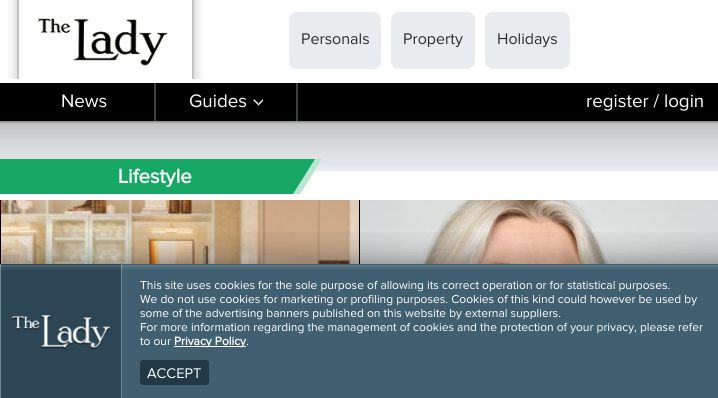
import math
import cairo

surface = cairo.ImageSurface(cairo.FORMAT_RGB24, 718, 398)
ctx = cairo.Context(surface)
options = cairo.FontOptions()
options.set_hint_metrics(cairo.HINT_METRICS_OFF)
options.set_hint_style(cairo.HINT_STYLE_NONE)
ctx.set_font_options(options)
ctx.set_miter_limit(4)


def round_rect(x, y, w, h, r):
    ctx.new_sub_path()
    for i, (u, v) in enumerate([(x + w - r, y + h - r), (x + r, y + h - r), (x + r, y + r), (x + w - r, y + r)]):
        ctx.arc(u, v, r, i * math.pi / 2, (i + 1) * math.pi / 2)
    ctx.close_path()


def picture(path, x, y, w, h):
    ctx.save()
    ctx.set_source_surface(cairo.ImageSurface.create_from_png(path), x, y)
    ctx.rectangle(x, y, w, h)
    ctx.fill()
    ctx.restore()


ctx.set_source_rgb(0.914, 0.922, 0.933)
ctx.paint()
ctx.set_source_rgb(1, 1, 1)
ctx.rectangle(0, 0, 718, 83)
ctx.fill()
picture("img1.png", 8, 0, 196, 79)
picture("img2.png", 19, 0, 173, 79)
ctx.set_source_rgb(0.765, 0.765, 0.765)
ctx.rectangle(192, 0, 2, 79)
ctx.fill()
ctx.rectangle(17, 0, 2, 79)
ctx.fill()
ctx.set_source_rgb(0.914, 0.922, 0.933)
round_rect(289, 12, 92, 57, 8)
ctx.fill()
ctx.select_font_face("Proxima Nova")
ctx.set_font_size(16)
ctx.set_source_rgb(0.176, 0.176, 0.176)
ctx.move_to(301, 44)
ctx.show_text("Personals")
ctx.set_source_rgb(0.914, 0.922, 0.933)
round_rect(391, 12, 84, 57, 8)
ctx.fill()
ctx.set_source_rgb(0.176, 0.176, 0.176)
ctx.move_to(403, 44)
ctx.show_text("Property")
ctx.set_source_rgb(0.914, 0.922, 0.933)
round_rect(485, 12, 85, 57, 8)
ctx.fill()
ctx.set_source_rgb(0.176, 0.176, 0.176)
ctx.move_to(497, 44)
ctx.show_text("Holidays")
ctx.set_source_rgb(0, 0, 0)
ctx.rectangle(0, 83, 718, 38)
ctx.fill()
ctx.set_source_rgb(0.247, 0.247, 0.247)
ctx.rectangle(154, 83, 2, 38)
ctx.fill()
ctx.set_font_size(18.75)
ctx.set_source_rgb(1, 1, 1)
ctx.move_to(61, 107)
ctx.show_text("News")
ctx.set_source_rgb(0.247, 0.247, 0.247)
ctx.rectangle(296, 83, 2, 38)
ctx.fill()
ctx.set_source_rgb(1, 1, 1)
ctx.move_to(189, 107)
ctx.show_text("Guides")
picture("img3.png", 253, 99, 10, 7)
ctx.move_to(586, 107)
ctx.show_text("register / login")
picture("img4.png", 0, 121, 718, 46)
ctx.rectangle(0, 171, 718, 29)
ctx.fill()
ctx.set_source_rgb(0.086, 0.655, 0.396)
ctx.new_path()
ctx.move_to(0, 159)
ctx.line_to(322, 159)
ctx.line_to(300, 194)
ctx.line_to(0, 194)
ctx.close_path()
ctx.fill()
ctx.select_font_face("Proxima Nova", cairo.FONT_SLANT_NORMAL, cairo.FONT_WEIGHT_BOLD)
ctx.set_font_size(20.5)
ctx.set_source_rgb(1, 1, 1)
ctx.move_to(118, 183)
ctx.show_text("Lifestyle")
ctx.set_source_rgba(1, 1, 1, 0.7)
ctx.new_path()
ctx.move_to(315, 159)
ctx.line_to(322.5, 159)
ctx.line_to(300.5, 194)
ctx.line_to(293, 194)
ctx.close_path()
ctx.fill()
picture("img5.png", 1, 200, 358, 64)
ctx.set_source_rgb(0, 0, 0)
ctx.rectangle(0, 200, 1, 64)
ctx.fill()
picture("img6.png", 360, 200, 358, 64)
ctx.rectangle(359, 200, 1, 64)
ctx.fill()
ctx.set_source_rgb(0.251, 0.376, 0.443)
ctx.rectangle(122, 264, 596, 134)
ctx.fill()
picture("img7.png", 1, 232, 717, 32)
ctx.set_source_rgb(0.173, 0.275, 0.333)
ctx.rectangle(1, 264, 120, 134)
ctx.fill()
ctx.set_source_rgb(0.439, 0.533, 0.584)
ctx.rectangle(121, 264, 1, 134)
ctx.fill()
ctx.rectangle(0, 264, 1, 134)
ctx.fill()
picture("img8.png", 0, 265, 718, 5)
picture("img9.png", 12, 315, 98, 35)
ctx.select_font_face("Proxima Nova")
ctx.set_font_size(12)
ctx.set_source_rgb(1, 1, 1)
ctx.move_to(140, 289)
ctx.show_text("This site uses cookies for the sole purpose of allowing its correct operation or for statistical purposes.")
ctx.move_to(140, 303)
ctx.show_text("We do not use cookies for marketing or profiling purposes. Cookies of this kind could however be used by")
ctx.move_to(140, 317)
ctx.show_text("some of the advertising banners published on this website by external suppliers.")
ctx.move_to(140, 331)
ctx.show_text("For more information regarding the management of cookies and the protection of your privacy, please refer")
ctx.move_to(140, 345)
ctx.show_text("to our")
ctx.rectangle(174, 346, 72, 1)
ctx.fill()
ctx.select_font_face("Proxima Nova", cairo.FONT_SLANT_NORMAL, cairo.FONT_WEIGHT_BOLD)
ctx.move_to(174, 345)
ctx.show_text("Privacy Policy")
ctx.select_font_face("Proxima Nova")
ctx.move_to(246, 345)
ctx.show_text(".")
ctx.set_source_rgb(0.133, 0.22, 0.271)
round_rect(140, 360, 69, 25, 3)
ctx.fill()
ctx.set_font_size(14.5)
ctx.set_source_rgb(1, 1, 1)
ctx.move_to(147, 378)
ctx.show_text("ACCEPT")
surface.write_to_png("page.png")
